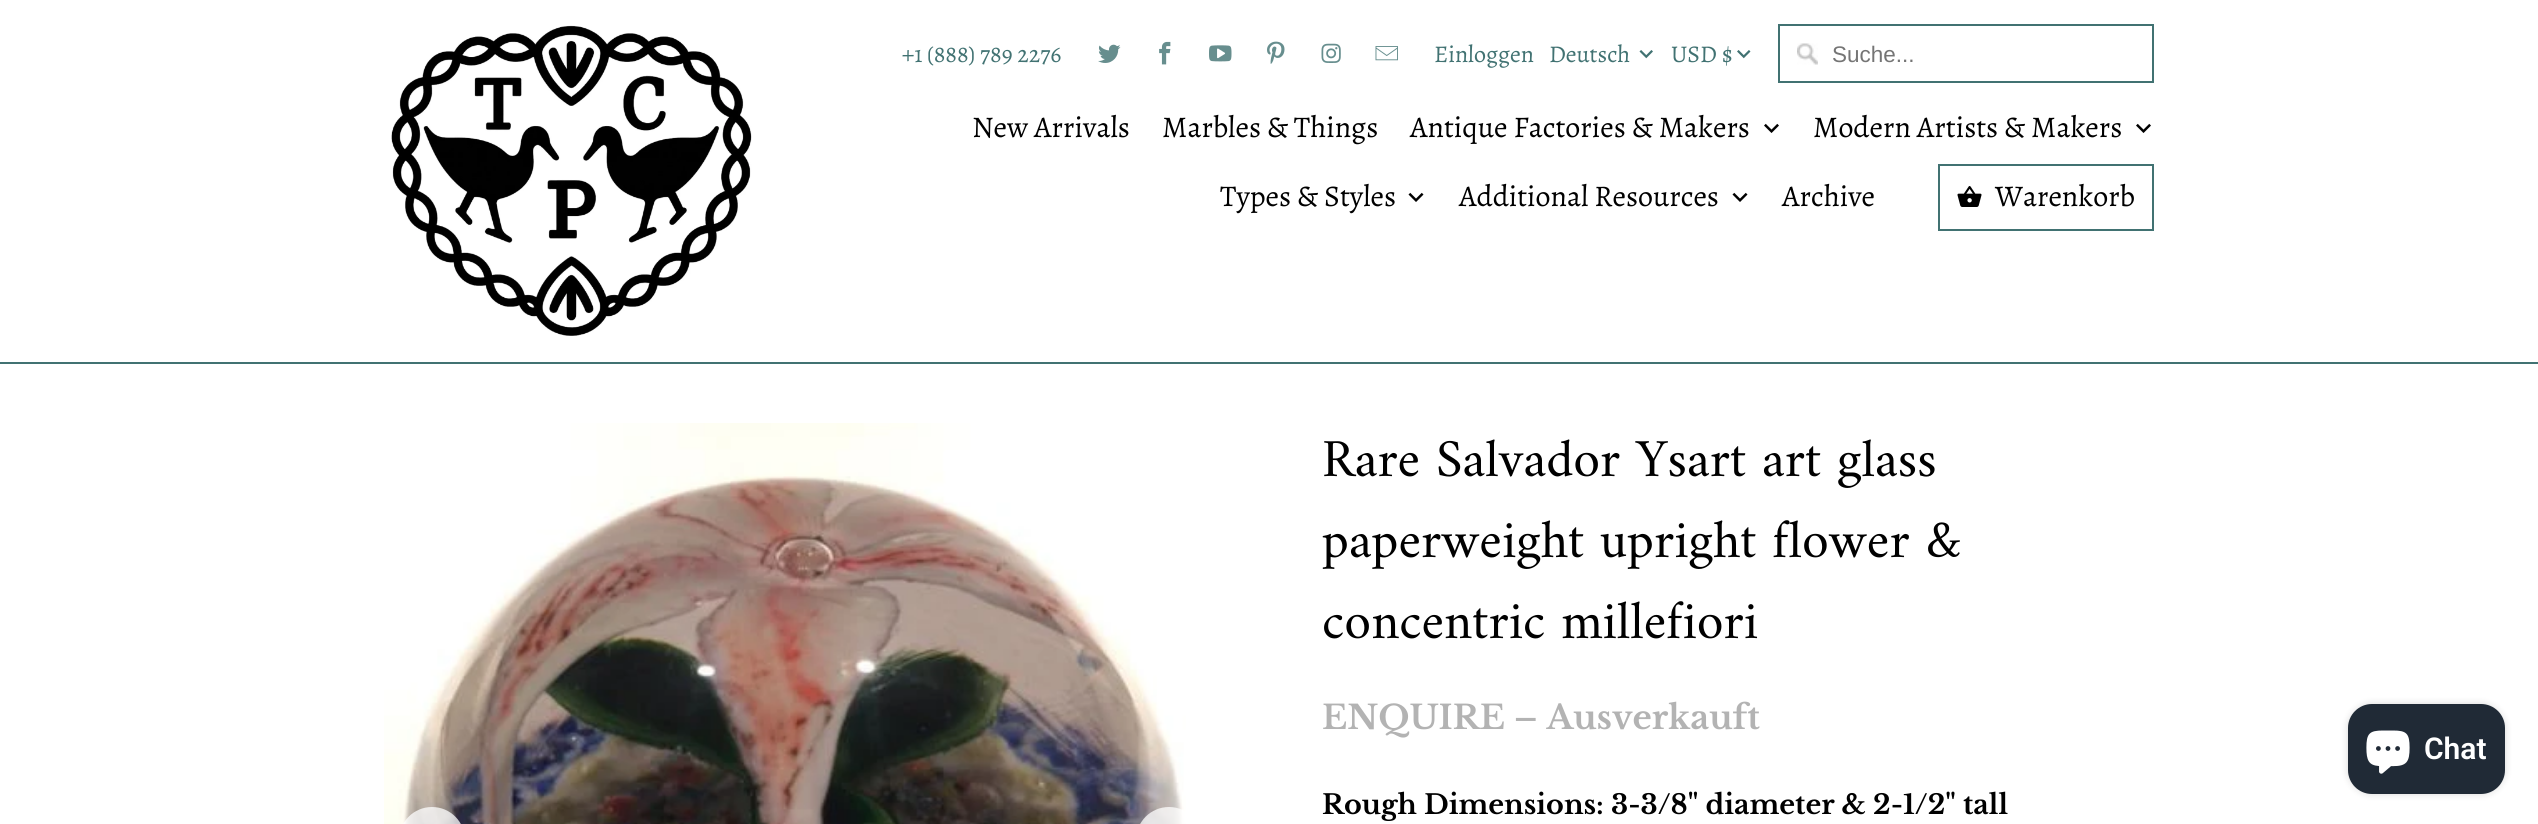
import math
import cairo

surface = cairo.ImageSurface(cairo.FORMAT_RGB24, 2538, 824)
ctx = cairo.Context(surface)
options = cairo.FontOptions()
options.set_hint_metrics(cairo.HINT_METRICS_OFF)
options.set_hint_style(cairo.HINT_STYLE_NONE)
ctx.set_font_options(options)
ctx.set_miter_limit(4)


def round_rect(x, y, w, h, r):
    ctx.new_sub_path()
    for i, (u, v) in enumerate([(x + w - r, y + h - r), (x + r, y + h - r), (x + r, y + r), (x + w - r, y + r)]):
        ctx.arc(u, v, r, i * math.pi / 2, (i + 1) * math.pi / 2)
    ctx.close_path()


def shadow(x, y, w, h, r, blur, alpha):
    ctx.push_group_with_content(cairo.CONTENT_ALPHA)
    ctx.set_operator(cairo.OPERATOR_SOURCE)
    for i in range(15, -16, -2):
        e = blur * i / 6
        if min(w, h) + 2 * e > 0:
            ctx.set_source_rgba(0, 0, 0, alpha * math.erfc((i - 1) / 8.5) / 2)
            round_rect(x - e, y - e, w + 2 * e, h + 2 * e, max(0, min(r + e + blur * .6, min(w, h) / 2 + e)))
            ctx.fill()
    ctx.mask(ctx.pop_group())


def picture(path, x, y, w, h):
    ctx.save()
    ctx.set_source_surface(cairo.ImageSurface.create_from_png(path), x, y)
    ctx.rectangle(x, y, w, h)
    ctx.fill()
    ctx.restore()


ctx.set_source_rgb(1, 1, 1)
ctx.paint()
ctx.set_source_rgb(0.255, 0.447, 0.447)
ctx.rectangle(0, 362, 2538, 2)
ctx.fill()
picture("img1.png", 391, 25, 361, 311)
ctx.select_font_face("Alegreya")
ctx.set_font_size(24)
ctx.move_to(902, 62)
ctx.show_text("+1 (888) 789 2276")
picture("img2.png", 1098, 44, 23, 19)
picture("img3.png", 1159, 41, 12, 24)
picture("img4.png", 1209, 45, 23, 17)
picture("img5.png", 1267, 41, 18, 23)
picture("img6.png", 1321, 43, 20, 20)
picture("img7.png", 1375, 46, 23, 15)
ctx.move_to(1434, 62)
ctx.show_text("Einloggen")
ctx.move_to(1549, 62)
ctx.show_text("Deutsch")
picture("img8.png", 1639, 50, 14, 9)
ctx.move_to(1671, 62)
ctx.show_text("USD $")
picture("img9.png", 1737, 50, 14, 9)
picture("img10.png", 1797, 43, 21, 22)
ctx.rectangle(1779, 25, 374, 57)
ctx.stroke()
ctx.select_font_face("Liberation Sans")
ctx.set_font_size(22.5)
ctx.set_source_rgb(0.459, 0.459, 0.459)
ctx.move_to(1832, 62)
ctx.show_text("Suche...")
ctx.select_font_face("Alegreya")
ctx.set_font_size(30)
ctx.set_source_rgb(0, 0, 0)
ctx.move_to(972, 137)
ctx.show_text("New Arrivals")
ctx.move_to(1162, 137)
ctx.show_text("Marbles & Things")
ctx.move_to(1410, 137)
ctx.show_text("Antique Factories & Makers")
picture("img11.png", 1764, 123, 15, 10)
ctx.move_to(1813, 137)
ctx.show_text("Modern Artists & Makers")
picture("img11.png", 2136, 123, 15, 10)
ctx.move_to(1220, 206)
ctx.show_text("Types & Styles")
picture("img12.png", 1408, 192, 16, 10)
ctx.move_to(1459, 206)
ctx.show_text("Additional Resources")
picture("img12.png", 1732, 192, 16, 10)
ctx.move_to(1782, 206)
ctx.show_text("Archive")
ctx.rectangle(1939, 165, 214, 65)
ctx.set_source_rgb(0.255, 0.447, 0.447)
ctx.stroke()
picture("img13.png", 1957, 186, 25, 21)
ctx.set_source_rgb(0, 0, 0)
ctx.move_to(1995, 206)
ctx.show_text("Warenkorb")
picture("img14.png", 384, 423, 802, 401)
ctx.set_source_rgba(1, 1, 1, 0.75)
round_rect(399, 807, 66, 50, 33)
ctx.fill()
round_rect(1136, 807, 66, 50, 33)
ctx.fill()
ctx.select_font_face("Amiri")
ctx.set_font_size(54)
ctx.set_source_rgb(0, 0, 0)
ctx.move_to(1322, 476)
ctx.show_text("Rare Salvador Ysart art glass")
ctx.move_to(1322, 557)
ctx.show_text("paperweight upright flower &")
ctx.move_to(1322, 638)
ctx.show_text("concentric millefiori")
ctx.select_font_face("Libre Baskerville", cairo.FONT_SLANT_NORMAL, cairo.FONT_WEIGHT_BOLD)
ctx.set_font_size(33)
ctx.set_source_rgb(0.702, 0.702, 0.702)
ctx.move_to(1322, 729)
ctx.show_text("ENQUIRE – Ausverkauft")
ctx.set_font_size(27)
ctx.set_source_rgb(0, 0, 0)
ctx.move_to(1322, 814)
ctx.show_text("Rough Dimensions: 3-3/8\" diameter & 2-1/2\" tall")
ctx.set_source_rgb(0, 0, 0)
shadow(2348, 704, 157, 90, 24, 4, 0.15)
ctx.set_source_rgb(0.125, 0.165, 0.212)
round_rect(2348, 704, 157, 90, 24)
ctx.fill()
picture("img15.png", 2366, 730, 44, 44)
ctx.select_font_face("Roboto SemiBold")
ctx.set_font_size(30)
ctx.set_source_rgb(1, 1, 1)
ctx.move_to(2424, 759)
ctx.show_text("Chat")
surface.write_to_png("page.png")
